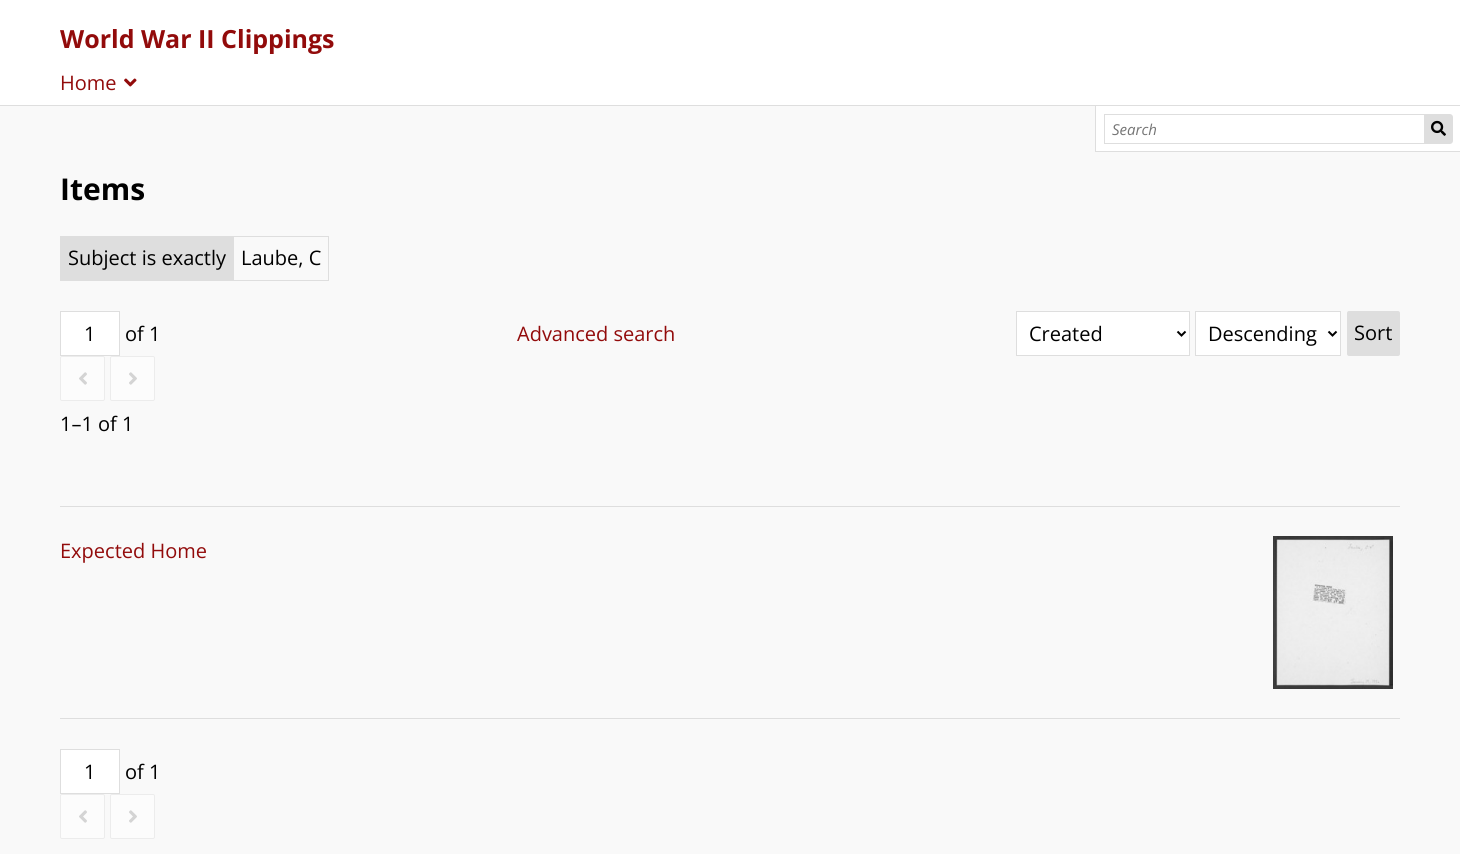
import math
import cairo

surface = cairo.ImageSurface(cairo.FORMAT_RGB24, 1460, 854)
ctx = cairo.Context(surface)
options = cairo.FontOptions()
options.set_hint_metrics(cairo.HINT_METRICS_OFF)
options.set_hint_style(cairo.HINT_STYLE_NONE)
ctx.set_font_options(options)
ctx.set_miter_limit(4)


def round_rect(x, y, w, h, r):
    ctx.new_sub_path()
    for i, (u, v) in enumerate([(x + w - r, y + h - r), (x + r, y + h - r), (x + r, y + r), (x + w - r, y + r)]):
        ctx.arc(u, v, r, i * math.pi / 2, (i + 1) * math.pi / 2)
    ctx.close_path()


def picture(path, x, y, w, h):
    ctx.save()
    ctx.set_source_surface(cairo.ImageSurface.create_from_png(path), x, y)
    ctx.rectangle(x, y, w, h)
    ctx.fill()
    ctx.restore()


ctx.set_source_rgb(0.973, 0.973, 0.973)
ctx.paint()
ctx.set_source_rgb(1, 1, 1)
ctx.rectangle(0, 0, 1460, 105)
ctx.fill()
ctx.set_source_rgb(0.871, 0.871, 0.871)
ctx.rectangle(0, 105, 1460, 1)
ctx.fill()
ctx.select_font_face("Open Sans", cairo.FONT_SLANT_NORMAL, cairo.FONT_WEIGHT_BOLD)
ctx.set_font_size(25)
ctx.set_source_rgb(0.573, 0.043, 0.043)
ctx.move_to(60, 48)
ctx.show_text("World War II Clippings")
ctx.select_font_face("Open Sans")
ctx.set_font_size(20)
ctx.move_to(60, 90)
ctx.show_text("Home")
picture("img1.png", 124, 78, 13, 9)
ctx.set_source_rgb(1, 1, 1)
ctx.rectangle(1096, 106, 364, 45)
ctx.fill()
ctx.set_source_rgb(0.871, 0.871, 0.871)
ctx.rectangle(1095, 151, 365, 1)
ctx.fill()
ctx.rectangle(1095, 105, 1, 47)
ctx.fill()
ctx.rectangle(1104.5, 114.5, 320, 29)
ctx.set_line_width(1)
ctx.stroke()
ctx.select_font_face("Open Sans", cairo.FONT_SLANT_ITALIC)
ctx.set_font_size(15)
ctx.set_source_rgb(0.459, 0.459, 0.459)
ctx.move_to(1112, 135)
ctx.show_text("Search")
ctx.set_source_rgb(0.871, 0.871, 0.871)
ctx.new_path()
ctx.move_to(1425, 114)
ctx.line_to(1450, 114)
ctx.curve_to(1451.5, 114, 1453, 115.5, 1453, 117)
ctx.line_to(1453, 141)
ctx.curve_to(1453, 142.5, 1451.5, 144, 1450, 144)
ctx.line_to(1425, 144)
ctx.close_path()
ctx.fill()
picture("img2.png", 1431, 120, 15, 16)
ctx.select_font_face("Open Sans", cairo.FONT_SLANT_NORMAL, cairo.FONT_WEIGHT_BOLD)
ctx.set_font_size(30)
ctx.set_source_rgb(0, 0, 0)
ctx.move_to(60, 200)
ctx.show_text("Items")
ctx.set_source_rgb(0.871, 0.871, 0.871)
ctx.rectangle(60, 236, 173, 45)
ctx.fill()
ctx.select_font_face("Open Sans")
ctx.set_font_size(20)
ctx.set_source_rgb(0, 0, 0)
ctx.move_to(68, 265)
ctx.show_text("Subject is exactly")
ctx.rectangle(233.5, 236.5, 95, 44)
ctx.set_source_rgb(0.871, 0.871, 0.871)
ctx.stroke()
ctx.set_source_rgb(0, 0, 0)
ctx.move_to(241, 265)
ctx.show_text("Laube, C")
ctx.set_source_rgb(1, 1, 1)
ctx.rectangle(60.5, 311.5, 59, 44)
ctx.fill_preserve()
ctx.set_source_rgb(0.871, 0.871, 0.871)
ctx.stroke()
ctx.set_source_rgb(0, 0, 0)
ctx.move_to(84, 341)
ctx.show_text("1")
ctx.move_to(125, 341)
ctx.show_text("of 1")
ctx.set_source_rgb(0.988, 0.988, 0.988)
round_rect(60.5, 356.5, 44, 44, 1.5)
ctx.fill_preserve()
ctx.set_source_rgb(0.922, 0.922, 0.922)
ctx.stroke()
picture("img3.png", 79, 372, 8, 13)
ctx.set_source_rgb(0.988, 0.988, 0.988)
round_rect(110.5, 356.5, 44, 44, 1.5)
ctx.fill_preserve()
ctx.set_source_rgb(0.922, 0.922, 0.922)
ctx.stroke()
picture("img4.png", 129, 372, 8, 13)
ctx.set_source_rgb(0, 0, 0)
ctx.move_to(60, 431)
ctx.show_text("1–1 of 1")
ctx.set_source_rgb(0.573, 0.043, 0.043)
ctx.move_to(517, 341)
ctx.show_text("Advanced search")
ctx.set_source_rgb(1, 1, 1)
ctx.rectangle(1016.5, 311.5, 173, 44)
ctx.fill_preserve()
ctx.set_source_rgb(0.871, 0.871, 0.871)
ctx.stroke()
ctx.new_path()
ctx.move_to(1177.5, 331.5)
ctx.line_to(1181.5, 335.5)
ctx.line_to(1185.5, 331.5)
ctx.set_source_rgb(0, 0, 0)
ctx.set_line_width(2)
ctx.stroke()
ctx.move_to(1029, 341)
ctx.show_text("Created")
ctx.set_source_rgb(1, 1, 1)
ctx.rectangle(1195.5, 311.5, 145, 44)
ctx.fill_preserve()
ctx.set_source_rgb(0.871, 0.871, 0.871)
ctx.set_line_width(1)
ctx.stroke()
ctx.new_path()
ctx.move_to(1328.5, 331.5)
ctx.line_to(1332.5, 335.5)
ctx.line_to(1336.5, 331.5)
ctx.set_source_rgb(0, 0, 0)
ctx.set_line_width(2)
ctx.stroke()
ctx.move_to(1208, 341)
ctx.show_text("Descending")
ctx.set_source_rgb(0.871, 0.871, 0.871)
round_rect(1347, 311, 53, 45, 2)
ctx.fill()
ctx.set_source_rgb(0, 0, 0)
ctx.move_to(1354, 340)
ctx.show_text("Sort")
ctx.set_source_rgb(0.871, 0.871, 0.871)
ctx.rectangle(60, 506, 1340, 1)
ctx.fill()
ctx.rectangle(60, 718, 1340, 1)
ctx.fill()
ctx.set_source_rgb(0.573, 0.043, 0.043)
ctx.move_to(60, 558)
ctx.show_text("Expected Home")
picture("img5.png", 1273, 536, 120, 153)
ctx.set_source_rgb(1, 1, 1)
ctx.rectangle(60.5, 749.5, 59, 44)
ctx.fill_preserve()
ctx.set_source_rgb(0.871, 0.871, 0.871)
ctx.set_line_width(1)
ctx.stroke()
ctx.set_source_rgb(0, 0, 0)
ctx.move_to(84, 779)
ctx.show_text("1")
ctx.move_to(125, 779)
ctx.show_text("of 1")
ctx.set_source_rgb(0.988, 0.988, 0.988)
round_rect(60.5, 794.5, 44, 44, 1.5)
ctx.fill_preserve()
ctx.set_source_rgb(0.922, 0.922, 0.922)
ctx.stroke()
picture("img3.png", 79, 810, 8, 13)
ctx.set_source_rgb(0.988, 0.988, 0.988)
round_rect(110.5, 794.5, 44, 44, 1.5)
ctx.fill_preserve()
ctx.set_source_rgb(0.922, 0.922, 0.922)
ctx.stroke()
picture("img4.png", 129, 810, 8, 13)
surface.write_to_png("page.png")
